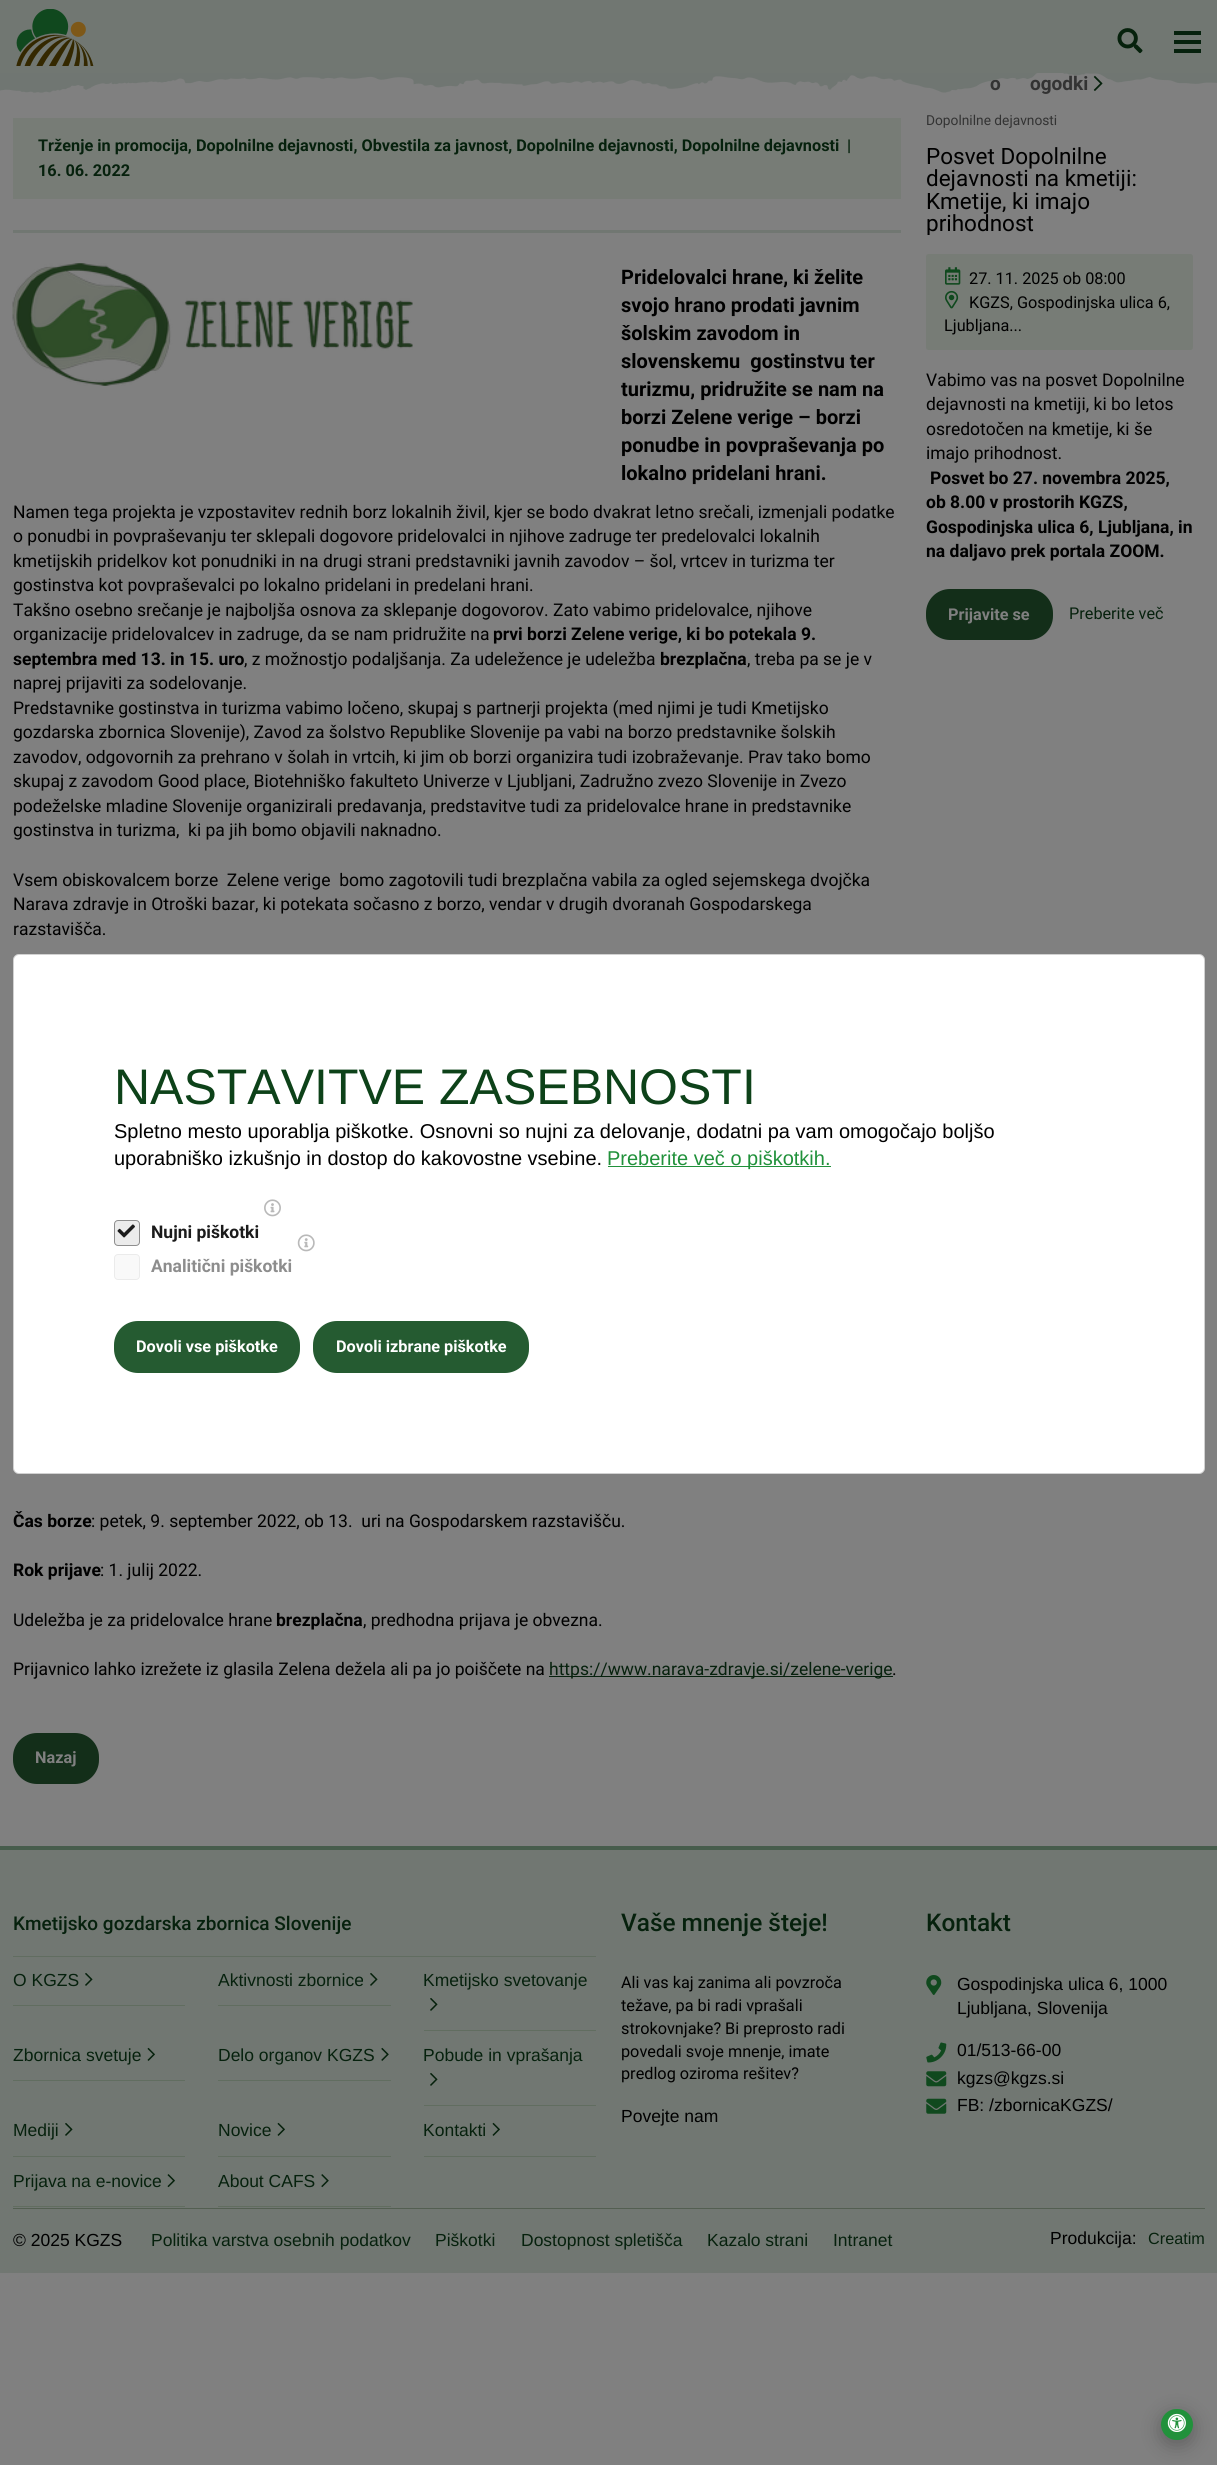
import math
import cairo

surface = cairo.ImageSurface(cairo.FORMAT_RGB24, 1217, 2465)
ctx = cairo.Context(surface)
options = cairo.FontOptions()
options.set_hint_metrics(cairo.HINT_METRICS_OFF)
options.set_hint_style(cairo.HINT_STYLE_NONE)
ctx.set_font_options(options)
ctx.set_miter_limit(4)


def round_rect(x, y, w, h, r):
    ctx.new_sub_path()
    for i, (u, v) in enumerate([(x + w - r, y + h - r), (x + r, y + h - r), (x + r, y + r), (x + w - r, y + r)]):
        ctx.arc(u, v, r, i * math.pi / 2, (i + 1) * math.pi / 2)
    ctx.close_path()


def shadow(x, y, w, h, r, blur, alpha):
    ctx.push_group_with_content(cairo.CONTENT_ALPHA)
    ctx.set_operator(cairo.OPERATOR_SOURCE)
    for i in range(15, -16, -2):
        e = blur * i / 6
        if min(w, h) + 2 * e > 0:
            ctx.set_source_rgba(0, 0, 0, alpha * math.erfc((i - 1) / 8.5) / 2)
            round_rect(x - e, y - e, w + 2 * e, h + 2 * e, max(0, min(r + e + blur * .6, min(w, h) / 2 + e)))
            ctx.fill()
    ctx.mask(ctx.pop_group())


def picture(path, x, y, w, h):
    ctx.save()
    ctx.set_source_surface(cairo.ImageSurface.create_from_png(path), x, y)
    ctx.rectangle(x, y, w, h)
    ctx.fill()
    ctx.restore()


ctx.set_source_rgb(0.502, 0.502, 0.502)
ctx.paint()
ctx.set_source_rgb(0.443, 0.467, 0.447)
ctx.rectangle(0, 0, 1217, 73)
ctx.fill()
picture("img1.png", 16, 9, 78, 57)
picture("img2.png", 1117, 28, 26, 26)
ctx.set_source_rgb(0.027, 0.129, 0.051)
ctx.rectangle(1174, 40, 27, 4)
ctx.fill()
ctx.rectangle(1174, 31, 27, 4)
ctx.fill()
ctx.rectangle(1174, 49, 27, 4)
ctx.fill()
ctx.select_font_face("Roboto", cairo.FONT_SLANT_NORMAL, cairo.FONT_WEIGHT_BOLD)
ctx.set_font_size(19)
ctx.set_source_rgb(0.2, 0.2, 0.2)
ctx.move_to(990, 90)
ctx.show_text("o")
ctx.move_to(1030, 90)
ctx.show_text("ogodki")
picture("img5.png", 1093, 75, 10, 16)
picture("img3.png", 0, 73, 1217, 20)
ctx.set_source_rgb(0.443, 0.467, 0.447)
ctx.rectangle(13, 230, 888, 3)
ctx.fill()
ctx.set_source_rgb(0.467, 0.486, 0.463)
ctx.rectangle(13, 118, 888, 81)
ctx.fill()
ctx.set_font_size(16.25)
ctx.set_source_rgb(0.027, 0.129, 0.051)
ctx.move_to(38, 151)
ctx.show_text("Trženje in promocija, Dopolnilne dejavnosti, Obvestila za javnost, Dopolnilne dejavnosti, Dopolnilne dejavnosti")
ctx.move_to(847, 151)
ctx.show_text("|")
ctx.move_to(38, 176)
ctx.show_text("16. 06. 2022")
picture("img4.png", 12, 263, 401, 123)
ctx.set_font_size(20)
ctx.set_source_rgb(0, 0, 0)
ctx.move_to(621, 284)
ctx.show_text("Pridelovalci hrane, ki želite")
ctx.move_to(621, 312)
ctx.show_text("svojo hrano prodati javnim")
ctx.move_to(621, 340)
ctx.show_text("šolskim zavodom in")
ctx.move_to(621, 368)
ctx.show_text("slovenskemu  gostinstvu ter")
ctx.move_to(621, 396)
ctx.show_text("turizmu, pridružite se nam na")
ctx.move_to(621, 424)
ctx.show_text("borzi Zelene verige – borzi")
ctx.move_to(621, 452)
ctx.show_text("ponudbe in povpraševanja po")
ctx.move_to(621, 480)
ctx.show_text("lokalno pridelani hrani.")
ctx.select_font_face("Roboto")
ctx.set_font_size(17.5)
ctx.move_to(13, 518)
ctx.show_text("Namen tega projekta je vzpostavitev rednih borz lokalnih živil, kjer se bodo dvakrat letno srečali, izmenjali podatke")
ctx.move_to(13, 542)
ctx.show_text("o ponudbi in povpraševanju ter sklepali dogovore pridelovalci in njihove zadruge ter predelovalci lokalnih")
ctx.move_to(13, 567)
ctx.show_text("kmetijskih pridelkov kot ponudniki in na drugi strani predstavniki javnih zavodov – šol, vrtcev in turizma ter")
ctx.move_to(13, 591)
ctx.show_text("gostinstva kot povpraševalci po lokalno pridelani in predelani hrani.")
ctx.move_to(13, 616)
ctx.show_text("Takšno osebno srečanje je najboljša osnova za sklepanje dogovorov. Zato vabimo pridelovalce, njihove")
ctx.move_to(13, 640)
ctx.show_text("organizacije pridelovalcev in zadruge, da se nam pridružite na")
ctx.select_font_face("Roboto", cairo.FONT_SLANT_NORMAL, cairo.FONT_WEIGHT_BOLD)
ctx.move_to(493, 640)
ctx.show_text("prvi borzi Zelene verige, ki bo potekala 9.")
ctx.move_to(13, 665)
ctx.show_text("septembra med 13. in 15. uro")
ctx.select_font_face("Roboto")
ctx.move_to(244, 665)
ctx.show_text(", z možnostjo podaljšanja. Za udeležence je udeležba")
ctx.select_font_face("Roboto", cairo.FONT_SLANT_NORMAL, cairo.FONT_WEIGHT_BOLD)
ctx.move_to(660, 665)
ctx.show_text("brezplačna")
ctx.select_font_face("Roboto")
ctx.move_to(747, 665)
ctx.show_text(", treba pa se je v")
ctx.move_to(13, 689)
ctx.show_text("naprej prijaviti za sodelovanje.")
ctx.move_to(13, 714)
ctx.show_text("Predstavnike gostinstva in turizma vabimo ločeno, skupaj s partnerji projekta (med njimi je tudi Kmetijsko")
ctx.move_to(13, 738)
ctx.show_text("gozdarska zbornica Slovenije), Zavod za šolstvo Republike Slovenije pa vabi na borzo predstavnike šolskih")
ctx.move_to(13, 763)
ctx.show_text("zavodov, odgovornih za prehrano v šolah in vrtcih, ki jim ob borzi organizira tudi izobraževanje. Prav tako bomo")
ctx.move_to(13, 787)
ctx.show_text("skupaj z zavodom Good place, Biotehniško fakulteto Univerze v Ljubljani, Zadružno zvezo Slovenije in Zvezo")
ctx.move_to(13, 812)
ctx.show_text("podeželske mladine Slovenije organizirali predavanja, predstavitve tudi za pridelovalce hrane in predstavnike")
ctx.move_to(13, 836)
ctx.show_text("gostinstva in turizma,  ki pa jih bomo objavili naknadno.")
ctx.move_to(13, 886)
ctx.show_text("Vsem obiskovalcem borze  Zelene verige  bomo zagotovili tudi brezplačna vabila za ogled sejemskega dvojčka")
ctx.move_to(13, 910)
ctx.show_text("Narava zdravje in Otroški bazar, ki potekata sočasno z borzo, vendar v drugih dvoranah Gospodarskega")
ctx.move_to(13, 935)
ctx.show_text("razstavišča.")
ctx.select_font_face("Roboto", cairo.FONT_SLANT_NORMAL, cairo.FONT_WEIGHT_BOLD)
ctx.move_to(13, 1527)
ctx.show_text("Čas borze")
ctx.select_font_face("Roboto")
ctx.move_to(91, 1527)
ctx.show_text(": petek, 9. september 2022, ob 13.  uri na Gospodarskem razstavišču.")
ctx.select_font_face("Roboto", cairo.FONT_SLANT_NORMAL, cairo.FONT_WEIGHT_BOLD)
ctx.move_to(13, 1576)
ctx.show_text("Rok prijave")
ctx.select_font_face("Roboto")
ctx.move_to(100, 1576)
ctx.show_text(": 1. julij 2022.")
ctx.move_to(13, 1626)
ctx.show_text("Udeležba je za pridelovalce hrane")
ctx.select_font_face("Roboto", cairo.FONT_SLANT_NORMAL, cairo.FONT_WEIGHT_BOLD)
ctx.move_to(276, 1626)
ctx.show_text("brezplačna")
ctx.select_font_face("Roboto")
ctx.move_to(363, 1626)
ctx.show_text(", predhodna prijava je obvezna.")
ctx.move_to(13, 1675)
ctx.show_text("Prijavnico lahko izrežete iz glasila Zelena dežela ali pa jo poiščete na")
ctx.set_source_rgb(0.027, 0.129, 0.051)
ctx.rectangle(549, 1676, 344, 1)
ctx.fill()
ctx.move_to(549, 1675)
ctx.show_text("https://www.narava-zdravje.si/zelene-verige")
ctx.set_source_rgb(0, 0, 0)
ctx.move_to(892, 1675)
ctx.show_text(".")
ctx.set_source_rgb(0.075, 0.18, 0.098)
round_rect(14.5, 1734.5, 83, 48, 22.5)
ctx.fill_preserve()
ctx.set_line_width(3)
ctx.stroke()
ctx.select_font_face("Roboto", cairo.FONT_SLANT_NORMAL, cairo.FONT_WEIGHT_BOLD)
ctx.set_font_size(16.25)
ctx.set_source_rgb(0.502, 0.502, 0.502)
ctx.move_to(35, 1763)
ctx.show_text("Nazaj")
ctx.select_font_face("Roboto")
ctx.set_font_size(13.75)
ctx.set_source_rgb(0.2, 0.2, 0.2)
ctx.move_to(926, 125)
ctx.show_text("Dopolnilne dejavnosti")
ctx.set_font_size(22.5)
ctx.set_source_rgb(0, 0, 0)
ctx.move_to(926, 164)
ctx.show_text("Posvet Dopolnilne")
ctx.move_to(926, 186)
ctx.show_text("dejavnosti na kmetiji:")
ctx.move_to(926, 209)
ctx.show_text("Kmetije, ki imajo")
ctx.save()
ctx.rectangle(926, 145, 267, 90)
ctx.clip()
ctx.move_to(926, 231)
ctx.show_text("prihodnost")
ctx.restore()
ctx.set_source_rgb(0.467, 0.486, 0.463)
round_rect(926, 254, 267, 96, 2.5)
ctx.fill()
picture("img6.png", 945, 267, 16, 18)
ctx.set_font_size(16.25)
ctx.set_source_rgb(0, 0, 0)
ctx.move_to(969, 284)
ctx.show_text("27. 11. 2025 ob 08:00")
picture("img7.png", 945, 290, 14, 19)
ctx.move_to(969, 308)
ctx.show_text("KGZS, Gospodinjska ulica 6,")
ctx.move_to(944, 331)
ctx.show_text("Ljubljana...")
ctx.set_font_size(17.5)
ctx.move_to(926, 386)
ctx.show_text("Vabimo vas na posvet Dopolnilne")
ctx.move_to(926, 410)
ctx.show_text("dejavnosti na kmetiji, ki bo letos")
ctx.move_to(926, 435)
ctx.show_text("osredotočen na kmetije, ki še")
ctx.move_to(926, 459)
ctx.show_text("imajo prihodnost.")
ctx.select_font_face("Roboto", cairo.FONT_SLANT_NORMAL, cairo.FONT_WEIGHT_BOLD)
ctx.move_to(930, 484)
ctx.show_text("Posvet bo 27. novembra 2025,")
ctx.move_to(926, 508)
ctx.show_text("ob 8.00 v prostorih KGZS,")
ctx.move_to(926, 533)
ctx.show_text("Gospodinjska ulica 6, Ljubljana, in")
ctx.move_to(926, 557)
ctx.show_text("na daljavo prek portala ZOOM.")
ctx.set_source_rgb(0.075, 0.18, 0.098)
round_rect(927.5, 590.5, 124, 48, 22.5)
ctx.fill_preserve()
ctx.stroke()
ctx.set_font_size(16.25)
ctx.set_source_rgb(0.502, 0.502, 0.502)
ctx.move_to(948, 620)
ctx.show_text("Prijavite se")
ctx.select_font_face("Roboto")
ctx.set_source_rgb(0.027, 0.129, 0.051)
ctx.move_to(1069, 619)
ctx.show_text("Preberite več")
ctx.set_source_rgb(0.278, 0.361, 0.298)
ctx.rectangle(0, 1846, 1217, 4)
ctx.fill()
ctx.set_source_rgb(1, 1, 1)
round_rect(13, 954, 1192, 520, 6)
ctx.fill()
round_rect(13.5, 954.5, 1191, 519, 5.5)
ctx.set_source_rgba(0, 0, 0, 0.18)
ctx.set_line_width(1)
ctx.stroke()
ctx.select_font_face("Liberation Sans")
ctx.set_font_size(50)
ctx.set_source_rgb(0.051, 0.259, 0.098)
ctx.move_to(114, 1104)
ctx.show_text("NASTAVITVE ZASEBNOSTI")
ctx.set_font_size(20)
ctx.set_source_rgb(0, 0, 0)
ctx.move_to(114, 1138)
ctx.show_text("Spletno mesto uporablja piškotke. Osnovni so nujni za delovanje, dodatni pa vam omogočajo boljšo")
ctx.move_to(114, 1165)
ctx.show_text("uporabniško izkušnjo in dostop do kakovostne vsebine.")
ctx.set_source_rgb(0.129, 0.569, 0.231)
ctx.rectangle(608, 1166, 223, 1)
ctx.fill()
ctx.move_to(607, 1165)
ctx.show_text("Preberite več o piškotkih.")
picture("img8.png", 264, 1199, 17, 18)
ctx.set_source_rgb(0.918, 0.918, 0.918)
round_rect(114.5, 1220.5, 25, 25, 3.5)
ctx.fill_preserve()
ctx.set_source_rgb(0.557, 0.557, 0.557)
ctx.stroke()
picture("img9.png", 117, 1224, 18, 14)
ctx.select_font_face("Roboto", cairo.FONT_SLANT_NORMAL, cairo.FONT_WEIGHT_BOLD)
ctx.set_font_size(17.5)
ctx.set_source_rgb(0.106, 0.106, 0.106)
ctx.move_to(151, 1238)
ctx.show_text("Nujni piškotki")
picture("img10.png", 297, 1234, 18, 18)
ctx.set_source_rgb(0.976, 0.976, 0.976)
round_rect(114.5, 1254.5, 25, 25, 3.5)
ctx.fill_preserve()
ctx.set_source_rgb(0.918, 0.918, 0.918)
ctx.stroke()
ctx.set_source_rgb(0.553, 0.553, 0.553)
ctx.move_to(151, 1272)
ctx.show_text("Analitični piškotki")
ctx.set_source_rgb(0.145, 0.357, 0.192)
round_rect(115.5, 1322.5, 183, 49, 22.5)
ctx.fill_preserve()
ctx.set_line_width(3)
ctx.stroke()
ctx.set_font_size(16.25)
ctx.set_source_rgb(1, 1, 1)
ctx.move_to(136, 1352)
ctx.show_text("Dovoli vse piškotke")
ctx.set_source_rgb(0.145, 0.357, 0.192)
round_rect(314.5, 1322.5, 213, 49, 22.5)
ctx.fill_preserve()
ctx.stroke()
ctx.set_source_rgb(1, 1, 1)
ctx.move_to(336, 1352)
ctx.show_text("Dovoli izbrane piškotke")
ctx.set_source_rgb(0.443, 0.467, 0.447)
ctx.rectangle(0, 1850, 1217, 423)
ctx.fill()
ctx.select_font_face("Roboto Medium")
ctx.set_font_size(19)
ctx.set_source_rgb(0.027, 0.129, 0.051)
ctx.move_to(13, 1930)
ctx.show_text("Kmetijsko gozdarska zbornica Slovenije")
ctx.set_source_rgb(0.38, 0.427, 0.376)
ctx.rectangle(13, 1956, 583, 1)
ctx.fill()
ctx.rectangle(13, 2005, 172, 1)
ctx.fill()
ctx.select_font_face("Liberation Sans")
ctx.set_font_size(17.5)
ctx.set_source_rgb(0.027, 0.129, 0.051)
ctx.move_to(13, 1986)
ctx.show_text("O KGZS")
picture("img11.png", 85, 1973, 8, 13)
ctx.set_source_rgb(0.38, 0.427, 0.376)
ctx.rectangle(218, 2005, 173, 1)
ctx.fill()
ctx.set_source_rgb(0.027, 0.129, 0.051)
ctx.move_to(218, 1986)
ctx.show_text("Aktivnosti zbornice")
picture("img11.png", 370, 1973, 8, 13)
ctx.set_source_rgb(0.38, 0.427, 0.376)
ctx.rectangle(424, 2030, 172, 1)
ctx.fill()
ctx.set_source_rgb(0.027, 0.129, 0.051)
ctx.move_to(423, 1986)
ctx.show_text("Kmetijsko svetovanje")
picture("img11.png", 430, 1998, 8, 13)
ctx.set_source_rgb(0.38, 0.427, 0.376)
ctx.rectangle(13, 2080, 172, 1)
ctx.fill()
ctx.set_source_rgb(0.027, 0.129, 0.051)
ctx.move_to(13, 2061)
ctx.show_text("Zbornica svetuje")
picture("img12.png", 147, 2047, 8, 14)
ctx.set_source_rgb(0.38, 0.427, 0.376)
ctx.rectangle(218, 2080, 173, 1)
ctx.fill()
ctx.set_source_rgb(0.027, 0.129, 0.051)
ctx.move_to(218, 2061)
ctx.show_text("Delo organov KGZS")
picture("img13.png", 381, 2047, 8, 14)
ctx.set_source_rgb(0.38, 0.427, 0.376)
ctx.rectangle(424, 2105, 172, 1)
ctx.fill()
ctx.set_source_rgb(0.027, 0.129, 0.051)
ctx.move_to(423, 2061)
ctx.show_text("Pobude in vprašanja")
picture("img11.png", 430, 2073, 8, 13)
ctx.set_source_rgb(0.38, 0.427, 0.376)
ctx.rectangle(13, 2156, 172, 1)
ctx.fill()
ctx.set_source_rgb(0.027, 0.129, 0.051)
ctx.move_to(13, 2136)
ctx.show_text("Mediji")
picture("img11.png", 65, 2123, 8, 13)
ctx.set_source_rgb(0.38, 0.427, 0.376)
ctx.rectangle(218, 2156, 173, 1)
ctx.fill()
ctx.set_source_rgb(0.027, 0.129, 0.051)
ctx.move_to(218, 2136)
ctx.show_text("Novice")
picture("img12.png", 277, 2122, 8, 14)
ctx.set_source_rgb(0.38, 0.427, 0.376)
ctx.rectangle(424, 2156, 172, 1)
ctx.fill()
ctx.set_source_rgb(0.027, 0.129, 0.051)
ctx.move_to(423, 2136)
ctx.show_text("Kontakti")
picture("img12.png", 492, 2122, 8, 14)
ctx.set_source_rgb(0.38, 0.427, 0.376)
ctx.rectangle(13, 2206, 172, 1)
ctx.fill()
ctx.set_source_rgb(0.027, 0.129, 0.051)
ctx.move_to(13, 2187)
ctx.show_text("Prijava na e-novice")
picture("img14.png", 167, 2174, 8, 14)
ctx.set_source_rgb(0.38, 0.427, 0.376)
ctx.rectangle(218, 2206, 173, 1)
ctx.fill()
ctx.set_source_rgb(0.027, 0.129, 0.051)
ctx.move_to(218, 2187)
ctx.show_text("About CAFS")
picture("img15.png", 321, 2174, 8, 14)
ctx.select_font_face("Roboto Medium")
ctx.set_font_size(24.4)
ctx.move_to(621, 1931)
ctx.show_text("Vaše mnenje šteje!")
ctx.select_font_face("Roboto")
ctx.set_font_size(16.25)
ctx.set_source_rgb(0, 0, 0)
ctx.move_to(621, 1988)
ctx.show_text("Ali vas kaj zanima ali povzroča")
ctx.move_to(621, 2011)
ctx.show_text("težave, pa bi radi vprašali")
ctx.move_to(621, 2034)
ctx.show_text("strokovnjake? Bi preprosto radi")
ctx.move_to(621, 2057)
ctx.show_text("povedali svoje mnenje, imate")
ctx.move_to(621, 2079)
ctx.show_text("predlog oziroma rešitev?")
ctx.select_font_face("Liberation Sans")
ctx.set_font_size(17.5)
ctx.move_to(621, 2122)
ctx.show_text("Povejte nam")
ctx.select_font_face("Roboto Medium")
ctx.set_font_size(24.4)
ctx.set_source_rgb(0.027, 0.129, 0.051)
ctx.move_to(926, 1931)
ctx.show_text("Kontakt")
picture("img16.png", 926, 1975, 16, 20)
ctx.select_font_face("Liberation Sans")
ctx.set_font_size(17.5)
ctx.set_source_rgb(0, 0, 0)
ctx.move_to(957, 1990)
ctx.show_text("Gospodinjska ulica 6, 1000")
ctx.move_to(957, 2014)
ctx.show_text("Ljubljana, Slovenija")
picture("img17.png", 926, 2042, 21, 21)
ctx.move_to(957, 2056)
ctx.show_text("01/513-66-00")
picture("img18.png", 926, 2071, 21, 16)
ctx.move_to(957, 2084)
ctx.show_text("kgzs@kgzs.si")
picture("img19.png", 926, 2098, 21, 16)
ctx.move_to(957, 2111)
ctx.show_text("FB: /zbornicaKGZS/")
ctx.set_source_rgb(0.325, 0.373, 0.318)
ctx.rectangle(13, 2208, 1192, 1)
ctx.fill()
ctx.set_source_rgb(0, 0, 0)
ctx.move_to(13, 2246)
ctx.show_text("© 2025 KGZS")
ctx.set_source_rgb(0.027, 0.129, 0.051)
ctx.move_to(151, 2246)
ctx.show_text("Politika varstva osebnih podatkov")
ctx.move_to(435, 2246)
ctx.show_text("Piškotki")
ctx.move_to(521, 2246)
ctx.show_text("Dostopnost spletišča")
ctx.move_to(707, 2246)
ctx.show_text("Kazalo strani")
ctx.move_to(833, 2246)
ctx.show_text("Intranet")
ctx.set_source_rgb(0, 0, 0)
ctx.move_to(1050, 2244)
ctx.show_text("Produkcija:")
ctx.set_font_size(16.25)
ctx.set_source_rgb(0.027, 0.129, 0.051)
ctx.move_to(1148, 2244)
ctx.show_text("Creatim")
ctx.set_source_rgb(0, 0, 0)
shadow(1161, 2414, 32, 31, 15.5, 9.5, 0.25)
ctx.set_source_rgb(0.129, 0.569, 0.231)
round_rect(1161, 2409, 32, 31, 15.5)
ctx.fill()
picture("img20.png", 1167, 2413, 19, 19)
surface.write_to_png("page.png")
